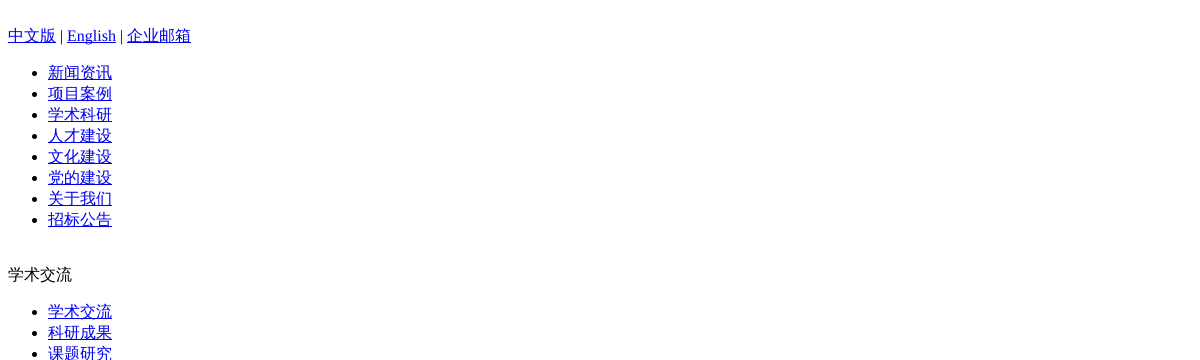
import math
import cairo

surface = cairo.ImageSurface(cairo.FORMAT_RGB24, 1200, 360)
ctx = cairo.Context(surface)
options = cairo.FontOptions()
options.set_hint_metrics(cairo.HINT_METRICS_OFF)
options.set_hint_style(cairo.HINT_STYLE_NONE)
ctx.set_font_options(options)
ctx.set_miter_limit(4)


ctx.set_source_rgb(1, 1, 1)
ctx.paint()
ctx.set_source_rgb(0, 0, 0.933)
ctx.rectangle(8, 42, 48, 1)
ctx.fill()
ctx.select_font_face("WenQuanYi Zen Hei Medium")
ctx.set_font_size(16)
ctx.move_to(8, 41)
ctx.show_text("中文版")
ctx.select_font_face("Liberation Serif")
ctx.set_source_rgb(0, 0, 0)
ctx.move_to(60, 41)
ctx.show_text("|")
ctx.set_source_rgb(0, 0, 0.933)
ctx.rectangle(67, 42, 49, 1)
ctx.fill()
ctx.move_to(67, 41)
ctx.show_text("English")
ctx.set_source_rgb(0, 0, 0)
ctx.move_to(120, 41)
ctx.show_text("|")
ctx.set_source_rgb(0, 0, 0.933)
ctx.rectangle(127, 42, 64, 1)
ctx.fill()
ctx.select_font_face("WenQuanYi Zen Hei Medium")
ctx.move_to(127, 41)
ctx.show_text("企业邮箱")
ctx.set_source_rgb(0, 0, 0)
ctx.new_path()
ctx.arc(34.5, 73.5, 2.5, 0, 2 * math.pi)
ctx.fill()
ctx.set_source_rgb(0, 0, 0.933)
ctx.rectangle(48, 79, 64, 1)
ctx.fill()
ctx.move_to(48, 78)
ctx.show_text("新闻资讯")
ctx.set_source_rgb(0, 0, 0)
ctx.new_path()
ctx.arc(34.5, 94.5, 2.5, 0, 2 * math.pi)
ctx.fill()
ctx.set_source_rgb(0, 0, 0.933)
ctx.rectangle(48, 100, 64, 1)
ctx.fill()
ctx.move_to(48, 99)
ctx.show_text("项目案例")
ctx.set_source_rgb(0, 0, 0)
ctx.new_path()
ctx.arc(34.5, 115.5, 2.5, 0, 2 * math.pi)
ctx.fill()
ctx.set_source_rgb(0, 0, 0.933)
ctx.rectangle(48, 121, 64, 1)
ctx.fill()
ctx.move_to(48, 120)
ctx.show_text("学术科研")
ctx.set_source_rgb(0, 0, 0)
ctx.new_path()
ctx.arc(34.5, 136.5, 2.5, 0, 2 * math.pi)
ctx.fill()
ctx.set_source_rgb(0, 0, 0.933)
ctx.rectangle(48, 142, 64, 1)
ctx.fill()
ctx.move_to(48, 141)
ctx.show_text("人才建设")
ctx.set_source_rgb(0, 0, 0)
ctx.new_path()
ctx.arc(34.5, 157.5, 2.5, 0, 2 * math.pi)
ctx.fill()
ctx.set_source_rgb(0, 0, 0.933)
ctx.rectangle(48, 163, 64, 1)
ctx.fill()
ctx.move_to(48, 162)
ctx.show_text("文化建设")
ctx.set_source_rgb(0, 0, 0)
ctx.new_path()
ctx.arc(34.5, 178.5, 2.5, 0, 2 * math.pi)
ctx.fill()
ctx.set_source_rgb(0, 0, 0.933)
ctx.rectangle(48, 184, 64, 1)
ctx.fill()
ctx.move_to(48, 183)
ctx.show_text("党的建设")
ctx.set_source_rgb(0, 0, 0)
ctx.new_path()
ctx.arc(34.5, 199.5, 2.5, 0, 2 * math.pi)
ctx.fill()
ctx.set_source_rgb(0, 0, 0.933)
ctx.rectangle(48, 205, 64, 1)
ctx.fill()
ctx.move_to(48, 204)
ctx.show_text("关于我们")
ctx.set_source_rgb(0, 0, 0)
ctx.new_path()
ctx.arc(34.5, 220.5, 2.5, 0, 2 * math.pi)
ctx.fill()
ctx.set_source_rgb(0, 0, 0.933)
ctx.rectangle(48, 226, 64, 1)
ctx.fill()
ctx.move_to(48, 225)
ctx.show_text("招标公告")
ctx.set_source_rgb(0, 0, 0)
ctx.move_to(8, 280)
ctx.show_text("学术交流")
ctx.new_path()
ctx.arc(34.5, 312.5, 2.5, 0, 2 * math.pi)
ctx.fill()
ctx.set_source_rgb(0, 0, 0.933)
ctx.rectangle(48, 318, 64, 1)
ctx.fill()
ctx.move_to(48, 317)
ctx.show_text("学术交流")
ctx.set_source_rgb(0, 0, 0)
ctx.new_path()
ctx.arc(34.5, 333.5, 2.5, 0, 2 * math.pi)
ctx.fill()
ctx.set_source_rgb(0, 0, 0.933)
ctx.rectangle(48, 339, 64, 1)
ctx.fill()
ctx.move_to(48, 338)
ctx.show_text("科研成果")
ctx.set_source_rgb(0, 0, 0)
ctx.new_path()
ctx.arc(34.5, 354.5, 2.5, 0, 2 * math.pi)
ctx.fill()
ctx.set_source_rgb(0, 0, 0.933)
ctx.move_to(48, 359)
ctx.show_text("课题研究")
surface.write_to_png("page.png")
